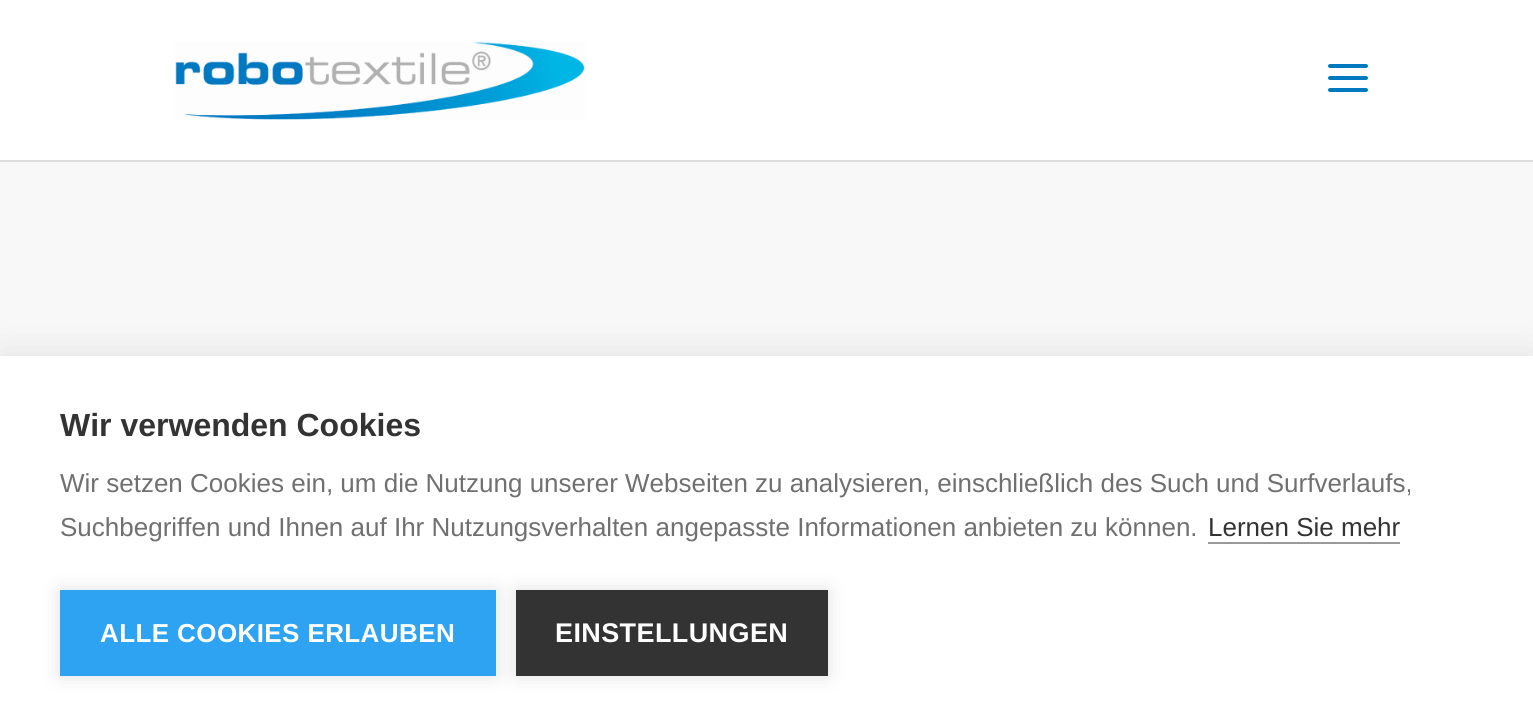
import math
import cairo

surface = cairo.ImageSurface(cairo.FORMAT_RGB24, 1533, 725)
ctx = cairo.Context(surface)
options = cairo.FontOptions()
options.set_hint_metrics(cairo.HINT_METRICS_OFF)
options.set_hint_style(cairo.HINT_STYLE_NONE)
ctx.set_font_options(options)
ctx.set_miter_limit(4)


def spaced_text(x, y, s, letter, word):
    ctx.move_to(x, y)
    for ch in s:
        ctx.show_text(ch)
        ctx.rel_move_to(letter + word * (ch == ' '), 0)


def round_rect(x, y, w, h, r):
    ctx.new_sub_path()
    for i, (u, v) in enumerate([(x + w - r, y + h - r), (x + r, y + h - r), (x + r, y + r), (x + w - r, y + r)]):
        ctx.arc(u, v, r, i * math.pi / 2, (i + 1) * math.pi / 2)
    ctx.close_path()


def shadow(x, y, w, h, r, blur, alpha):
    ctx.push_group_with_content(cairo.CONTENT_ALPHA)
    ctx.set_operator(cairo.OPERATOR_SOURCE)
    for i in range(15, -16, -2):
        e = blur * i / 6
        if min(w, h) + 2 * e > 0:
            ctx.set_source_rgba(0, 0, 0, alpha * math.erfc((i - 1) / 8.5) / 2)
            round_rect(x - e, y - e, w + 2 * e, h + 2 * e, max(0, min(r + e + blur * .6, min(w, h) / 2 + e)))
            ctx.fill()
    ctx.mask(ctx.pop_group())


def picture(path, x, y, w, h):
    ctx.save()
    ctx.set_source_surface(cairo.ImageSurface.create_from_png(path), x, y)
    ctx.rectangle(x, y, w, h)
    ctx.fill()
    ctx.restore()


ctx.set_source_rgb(0.969, 0.969, 0.969)
ctx.paint()
ctx.set_source_rgb(0.871, 0.871, 0.871)
ctx.rectangle(0, 160, 1533, 2)
ctx.fill()
ctx.set_source_rgb(1, 1, 1)
ctx.rectangle(0, 0, 1533, 160)
ctx.fill()
picture("img1.png", 175, 41, 410, 79)
picture("img2.png", 1328, 64, 40, 28)
ctx.set_source_rgb(0, 0, 0)
shadow(0, 356, 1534, 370, 0, 20, 0.1)
ctx.set_source_rgb(1, 1, 1)
ctx.rectangle(0, 356, 1533, 369)
ctx.fill()
ctx.select_font_face("Liberation Sans", cairo.FONT_SLANT_NORMAL, cairo.FONT_WEIGHT_BOLD)
ctx.set_font_size(32)
ctx.set_source_rgb(0.2, 0.2, 0.2)
ctx.move_to(60, 436)
ctx.show_text("Wir verwenden Cookies")
ctx.select_font_face("Liberation Sans")
ctx.set_font_size(26)
ctx.set_source_rgb(0.439, 0.439, 0.439)
ctx.move_to(60, 492)
ctx.show_text("Wir setzen Cookies ein, um die Nutzung unserer Webseiten zu analysieren, einschließlich des Such und Surfverlaufs,")
ctx.move_to(60, 536)
ctx.show_text("Suchbegriffen und Ihnen auf Ihr Nutzungsverhalten angepasste Informationen anbieten zu können.")
ctx.set_source_rgb(0.2, 0.2, 0.2)
ctx.move_to(1208, 536)
ctx.show_text("Lernen Sie mehr")
ctx.set_source_rgb(0.6, 0.6, 0.6)
ctx.rectangle(1208, 542, 192, 2)
ctx.fill()
ctx.set_source_rgb(0, 0, 0)
shadow(60, 590, 436, 86, 0, 10, 0.12)
ctx.set_source_rgb(0.18, 0.639, 0.949)
ctx.rectangle(60, 590, 436, 86)
ctx.fill()
ctx.select_font_face("Liberation Sans", cairo.FONT_SLANT_NORMAL, cairo.FONT_WEIGHT_BOLD)
ctx.set_source_rgb(1, 1, 1)
spaced_text(100, 642, "ALLE COOKIES ERLAUBEN", 0.4, 0)
ctx.set_source_rgb(0, 0, 0)
shadow(516, 590, 312, 86, 0, 10, 0.12)
ctx.set_source_rgb(0.2, 0.2, 0.2)
ctx.rectangle(516, 590, 312, 86)
ctx.fill()
ctx.set_font_size(27)
ctx.set_source_rgb(1, 1, 1)
spaced_text(555, 642, "EINSTELLUNGEN", 0.4, 0)
surface.write_to_png("page.png")
